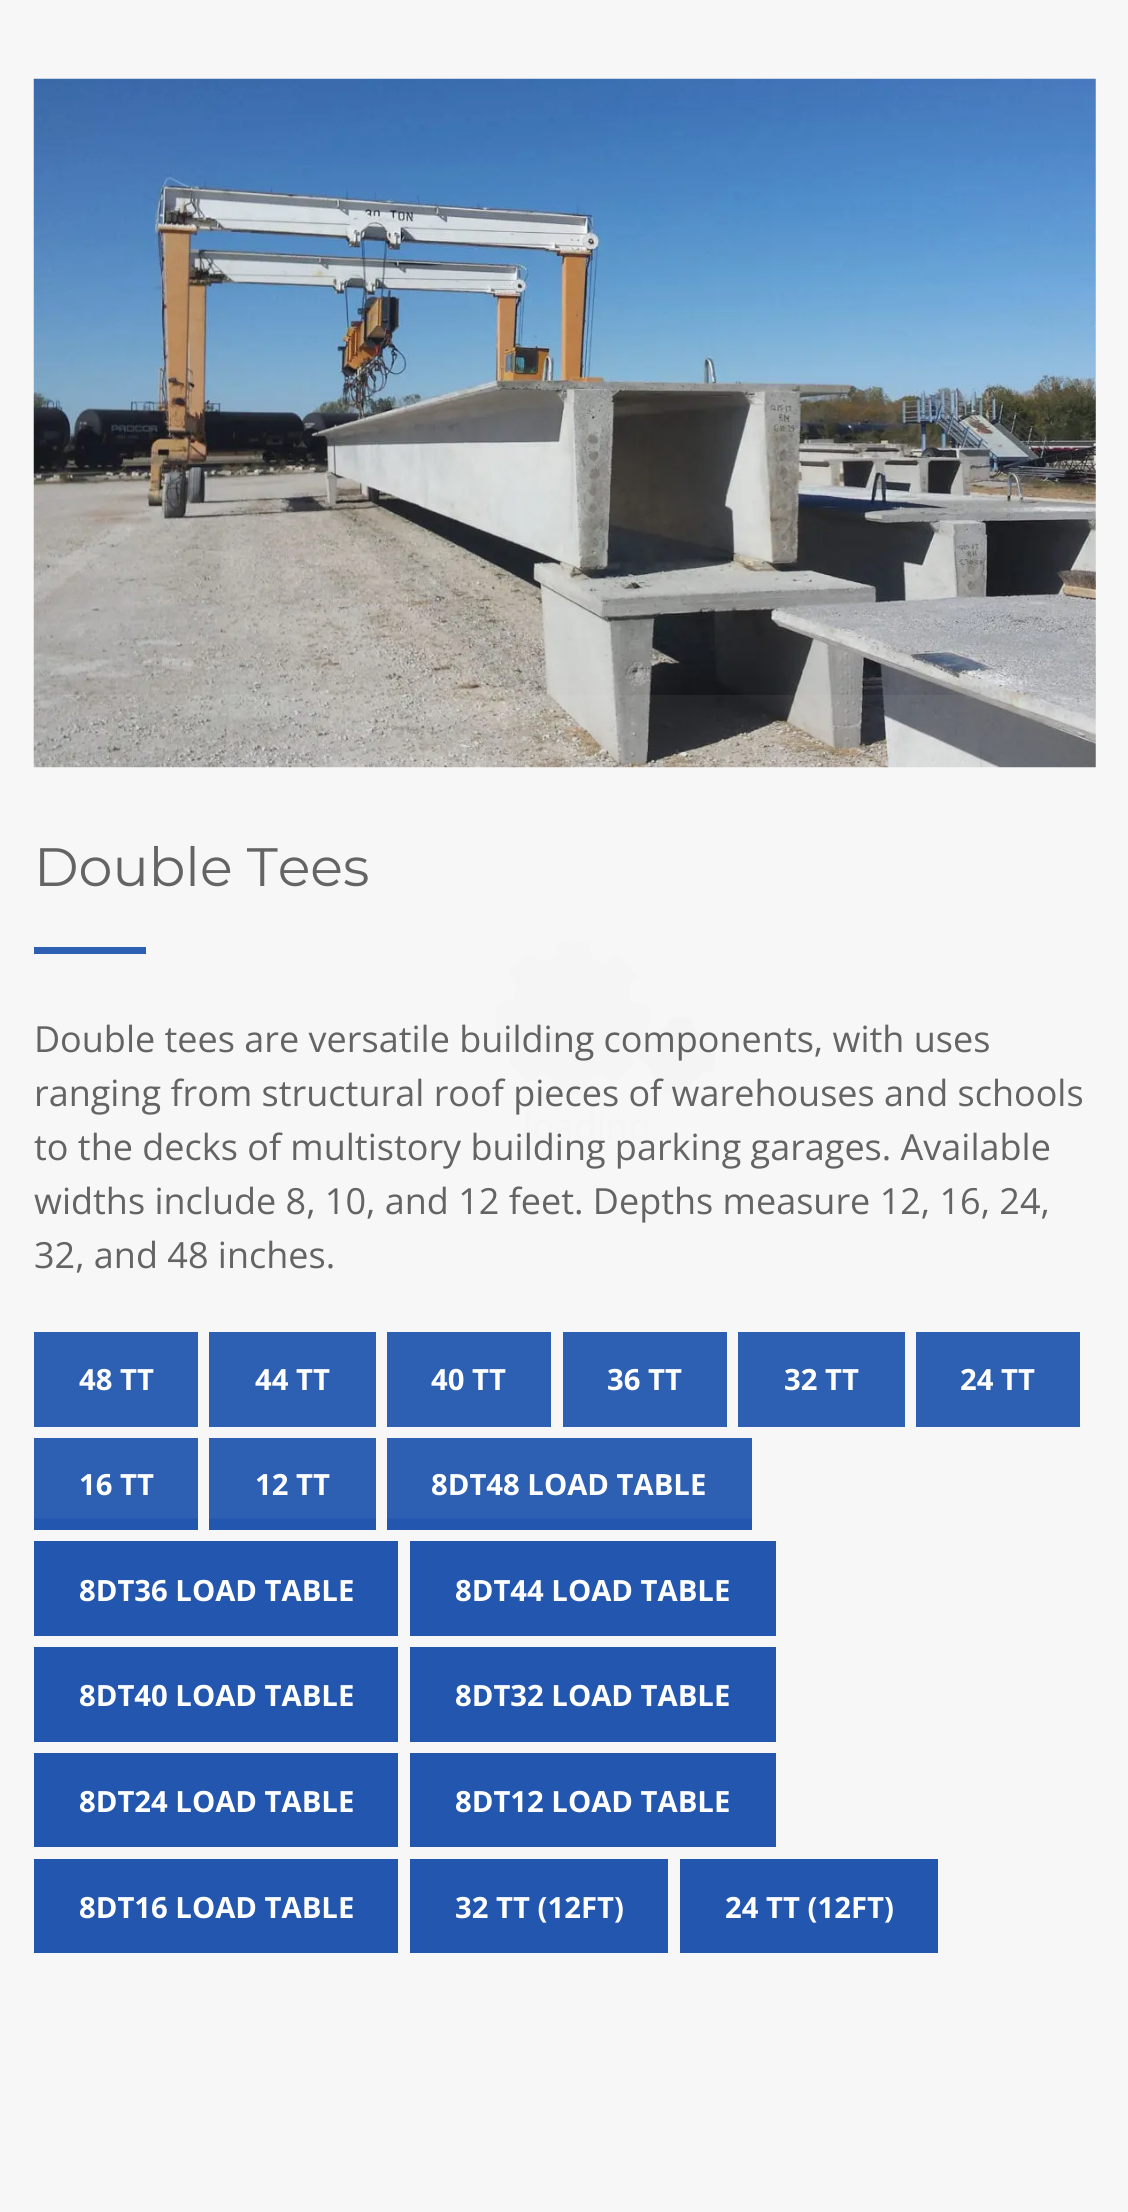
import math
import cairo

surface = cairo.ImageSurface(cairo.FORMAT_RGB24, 1128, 2212)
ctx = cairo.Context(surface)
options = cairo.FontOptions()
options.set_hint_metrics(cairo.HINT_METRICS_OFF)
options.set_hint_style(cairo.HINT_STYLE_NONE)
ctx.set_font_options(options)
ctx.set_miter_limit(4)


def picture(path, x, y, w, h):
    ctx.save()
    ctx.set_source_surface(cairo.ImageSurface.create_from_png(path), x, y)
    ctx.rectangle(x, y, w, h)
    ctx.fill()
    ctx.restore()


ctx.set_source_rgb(0.965, 0.965, 0.965)
ctx.paint()
picture("img2.png", 33, 78, 1063, 690)
ctx.select_font_face("Montserrat")
ctx.set_font_size(54)
ctx.set_source_rgb(0.361, 0.361, 0.361)
ctx.move_to(34, 886)
ctx.show_text("Double Tees")
ctx.set_source_rgb(0.133, 0.337, 0.686)
ctx.rectangle(34, 947, 112, 7)
ctx.fill()
ctx.select_font_face("Open Sans")
ctx.set_font_size(36)
ctx.set_source_rgb(0.361, 0.361, 0.361)
ctx.move_to(34, 1052)
ctx.show_text("Double tees are versatile building components, with uses")
ctx.move_to(34, 1106)
ctx.show_text("ranging from structural roof pieces of warehouses and schools")
ctx.move_to(34, 1160)
ctx.show_text("to the decks of multistory building parking garages. Available")
ctx.move_to(34, 1214)
ctx.show_text("widths include 8, 10, and 12 feet. Depths measure 12, 16, 24,")
ctx.move_to(34, 1268)
ctx.show_text("32, and 48 inches.")
ctx.set_source_rgb(0.133, 0.337, 0.686)
ctx.rectangle(34, 1332, 164, 95)
ctx.fill()
ctx.select_font_face("Open Sans", cairo.FONT_SLANT_NORMAL, cairo.FONT_WEIGHT_BOLD)
ctx.set_font_size(29.25)
ctx.set_source_rgb(1, 1, 1)
ctx.move_to(79, 1390)
ctx.show_text("48 TT")
ctx.set_source_rgb(0.133, 0.337, 0.686)
ctx.rectangle(209, 1332, 167, 95)
ctx.fill()
ctx.set_source_rgb(1, 1, 1)
ctx.move_to(255, 1390)
ctx.show_text("44 TT")
ctx.set_source_rgb(0.133, 0.337, 0.686)
ctx.rectangle(387, 1332, 164, 95)
ctx.fill()
ctx.set_source_rgb(1, 1, 1)
ctx.move_to(431, 1390)
ctx.show_text("40 TT")
ctx.set_source_rgb(0.133, 0.337, 0.686)
ctx.rectangle(563, 1332, 164, 95)
ctx.fill()
ctx.set_source_rgb(1, 1, 1)
ctx.move_to(607, 1390)
ctx.show_text("36 TT")
ctx.set_source_rgb(0.133, 0.337, 0.686)
ctx.rectangle(738, 1332, 167, 95)
ctx.fill()
ctx.set_source_rgb(1, 1, 1)
ctx.move_to(784, 1390)
ctx.show_text("32 TT")
ctx.set_source_rgb(0.133, 0.337, 0.686)
ctx.rectangle(916, 1332, 164, 95)
ctx.fill()
ctx.set_source_rgb(1, 1, 1)
ctx.move_to(960, 1390)
ctx.show_text("24 TT")
ctx.set_source_rgb(0.133, 0.337, 0.686)
ctx.rectangle(34, 1438, 164, 92)
ctx.fill()
ctx.set_source_rgb(1, 1, 1)
ctx.move_to(79, 1495)
ctx.show_text("16 TT")
ctx.set_source_rgb(0.133, 0.337, 0.686)
ctx.rectangle(209, 1438, 167, 92)
ctx.fill()
ctx.set_source_rgb(1, 1, 1)
ctx.move_to(255, 1495)
ctx.show_text("12 TT")
ctx.set_source_rgb(0.133, 0.337, 0.686)
ctx.rectangle(387, 1438, 365, 92)
ctx.fill()
ctx.set_source_rgb(1, 1, 1)
ctx.move_to(431, 1495)
ctx.show_text("8DT48 LOAD TABLE")
picture("img1.png", 34, 695, 1062, 824)
ctx.set_source_rgb(0.133, 0.337, 0.686)
ctx.rectangle(34, 1541, 364, 95)
ctx.fill()
ctx.set_source_rgb(1, 1, 1)
ctx.move_to(79, 1601)
ctx.show_text("8DT36 LOAD TABLE")
ctx.set_source_rgb(0.133, 0.337, 0.686)
ctx.rectangle(410, 1541, 366, 95)
ctx.fill()
ctx.set_source_rgb(1, 1, 1)
ctx.move_to(455, 1601)
ctx.show_text("8DT44 LOAD TABLE")
ctx.set_source_rgb(0.133, 0.337, 0.686)
ctx.rectangle(34, 1647, 364, 95)
ctx.fill()
ctx.set_source_rgb(1, 1, 1)
ctx.move_to(79, 1706)
ctx.show_text("8DT40 LOAD TABLE")
ctx.set_source_rgb(0.133, 0.337, 0.686)
ctx.rectangle(410, 1647, 366, 95)
ctx.fill()
ctx.set_source_rgb(1, 1, 1)
ctx.move_to(455, 1706)
ctx.show_text("8DT32 LOAD TABLE")
ctx.set_source_rgb(0.133, 0.337, 0.686)
ctx.rectangle(34, 1753, 364, 94)
ctx.fill()
ctx.set_source_rgb(1, 1, 1)
ctx.move_to(79, 1812)
ctx.show_text("8DT24 LOAD TABLE")
ctx.set_source_rgb(0.133, 0.337, 0.686)
ctx.rectangle(410, 1753, 366, 94)
ctx.fill()
ctx.set_source_rgb(1, 1, 1)
ctx.move_to(455, 1812)
ctx.show_text("8DT12 LOAD TABLE")
ctx.set_source_rgb(0.133, 0.337, 0.686)
ctx.rectangle(34, 1859, 364, 94)
ctx.fill()
ctx.set_source_rgb(1, 1, 1)
ctx.move_to(79, 1918)
ctx.show_text("8DT16 LOAD TABLE")
ctx.set_source_rgb(0.133, 0.337, 0.686)
ctx.rectangle(410, 1859, 258, 94)
ctx.fill()
ctx.set_source_rgb(1, 1, 1)
ctx.move_to(455, 1918)
ctx.show_text("32 TT (12FT)")
ctx.set_source_rgb(0.133, 0.337, 0.686)
ctx.rectangle(680, 1859, 258, 94)
ctx.fill()
ctx.set_source_rgb(1, 1, 1)
ctx.move_to(725, 1918)
ctx.show_text("24 TT (12FT)")
surface.write_to_png("page.png")
